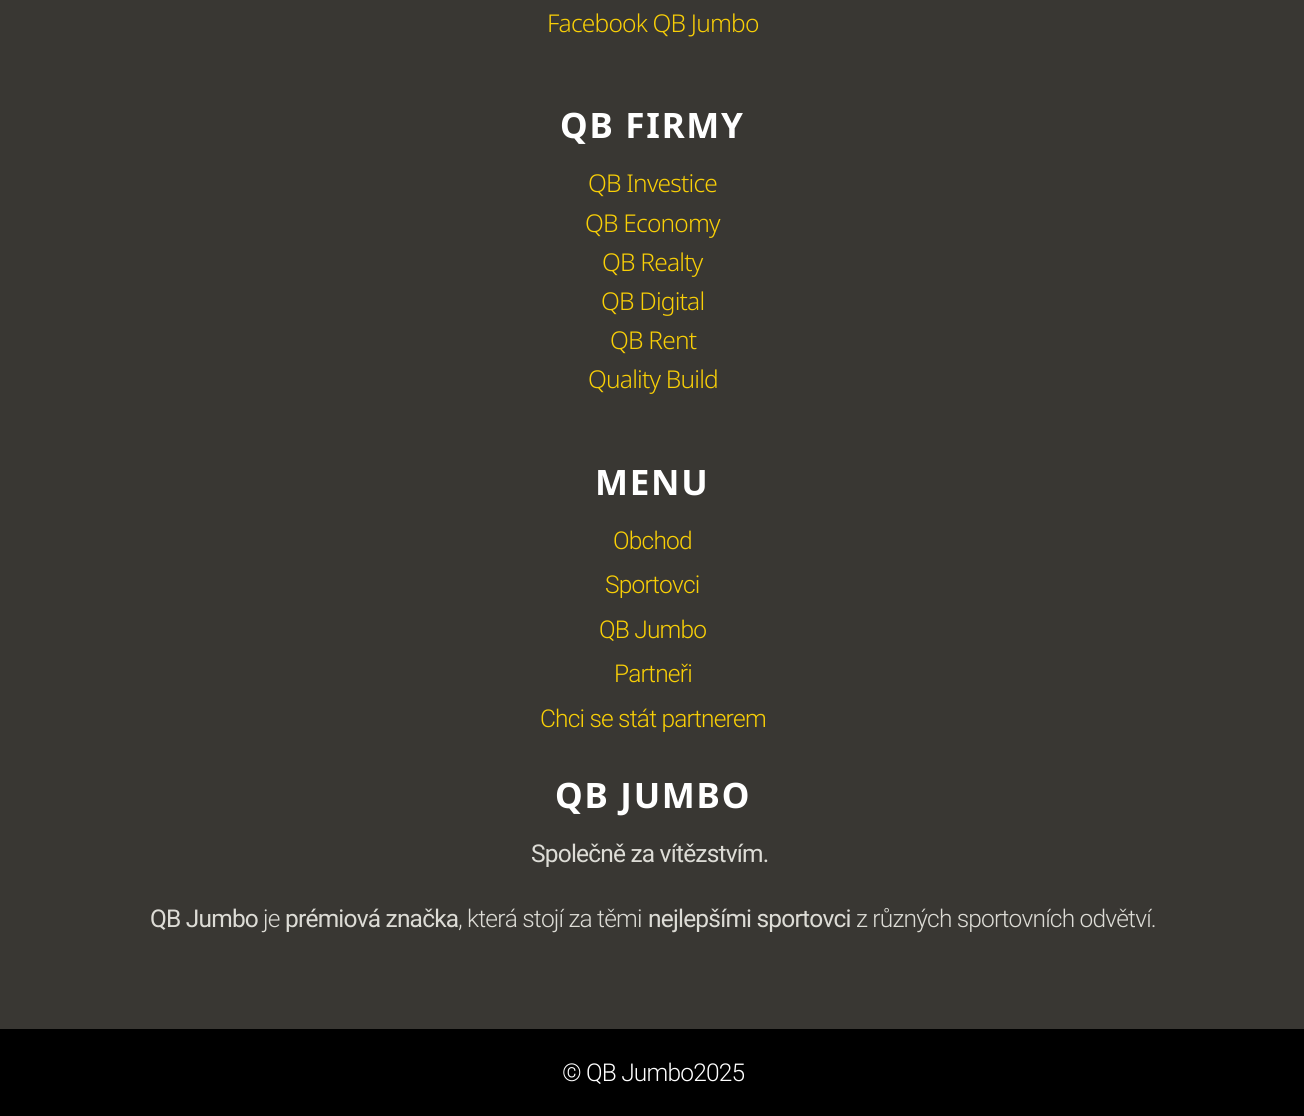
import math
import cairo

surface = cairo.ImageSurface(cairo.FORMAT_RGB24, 1304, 1116)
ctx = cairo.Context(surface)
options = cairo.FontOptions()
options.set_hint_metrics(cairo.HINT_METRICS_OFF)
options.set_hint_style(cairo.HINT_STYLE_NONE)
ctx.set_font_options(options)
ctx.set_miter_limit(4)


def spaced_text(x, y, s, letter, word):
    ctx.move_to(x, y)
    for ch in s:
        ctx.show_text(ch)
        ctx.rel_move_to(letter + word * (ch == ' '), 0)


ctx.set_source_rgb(0.224, 0.216, 0.2)
ctx.paint()
ctx.select_font_face("Noto Sans Light")
ctx.set_font_size(24.5)
ctx.set_source_rgb(0.976, 0.812, 0.024)
spaced_text(547, 32, "Facebook QB Jumbo", -0.8, 0)
ctx.select_font_face("Noto Sans", cairo.FONT_SLANT_NORMAL, cairo.FONT_WEIGHT_BOLD)
ctx.set_font_size(35)
ctx.set_source_rgb(1, 1, 1)
spaced_text(560, 138, "QB FIRMY", 1.75, 0)
ctx.select_font_face("Noto Sans Light")
ctx.set_font_size(24.5)
ctx.set_source_rgb(0.976, 0.812, 0.024)
spaced_text(588, 192, "QB Investice", -0.8, 0)
spaced_text(585, 232, "QB Economy", -0.8, 0)
spaced_text(602, 271, "QB Realty", -0.8, 0)
spaced_text(601, 310, "QB Digital", -0.8, 0)
spaced_text(610, 349, "QB Rent", -0.8, 0)
spaced_text(588, 388, "Quality Build", -0.8, 0)
ctx.select_font_face("Noto Sans", cairo.FONT_SLANT_NORMAL, cairo.FONT_WEIGHT_BOLD)
ctx.set_font_size(35)
ctx.set_source_rgb(1, 1, 1)
spaced_text(595, 495, "MENU", 1.75, 0)
ctx.select_font_face("Roboto Light")
ctx.set_font_size(24.5)
ctx.set_source_rgb(0.976, 0.812, 0.024)
spaced_text(613, 549, "Obchod", -0.8, 0)
spaced_text(605, 593, "Sportovci", -0.8, 0)
spaced_text(599, 638, "QB Jumbo", -0.8, 0)
spaced_text(614, 682, "Partneři", -0.8, 0)
spaced_text(540, 727, "Chci se stát partnerem", -0.8, 0)
ctx.select_font_face("Noto Sans", cairo.FONT_SLANT_NORMAL, cairo.FONT_WEIGHT_BOLD)
ctx.set_font_size(35)
ctx.set_source_rgb(1, 1, 1)
spaced_text(555, 808, "QB JUMBO", 1.75, 0)
ctx.select_font_face("Roboto")
ctx.set_font_size(24.5)
ctx.set_source_rgb(0.867, 0.863, 0.839)
spaced_text(531, 862, "Společně za vítězstvím.", -0.8, 0)
spaced_text(150, 927, "QB Jumbo", -0.8, 0)
ctx.select_font_face("Roboto Light")
spaced_text(263, 927, "je", -0.8, 0)
ctx.select_font_face("Roboto")
spaced_text(285, 927, "prémiová značka", -0.8, 0)
ctx.select_font_face("Roboto Light")
spaced_text(458, 927, ", která stojí za těmi", -0.8, 0)
ctx.select_font_face("Roboto")
spaced_text(648, 927, "nejlepšími sportovci", -0.8, 0)
ctx.select_font_face("Roboto Light")
spaced_text(856, 927, "z různých sportovních odvětví.", -0.8, 0)
ctx.set_source_rgb(0, 0, 0)
ctx.rectangle(0, 1029, 1304, 87)
ctx.fill()
ctx.set_source_rgb(1, 1, 1)
spaced_text(562, 1081, "© QB Jumbo2025", -0.8, 0)
surface.write_to_png("page.png")
